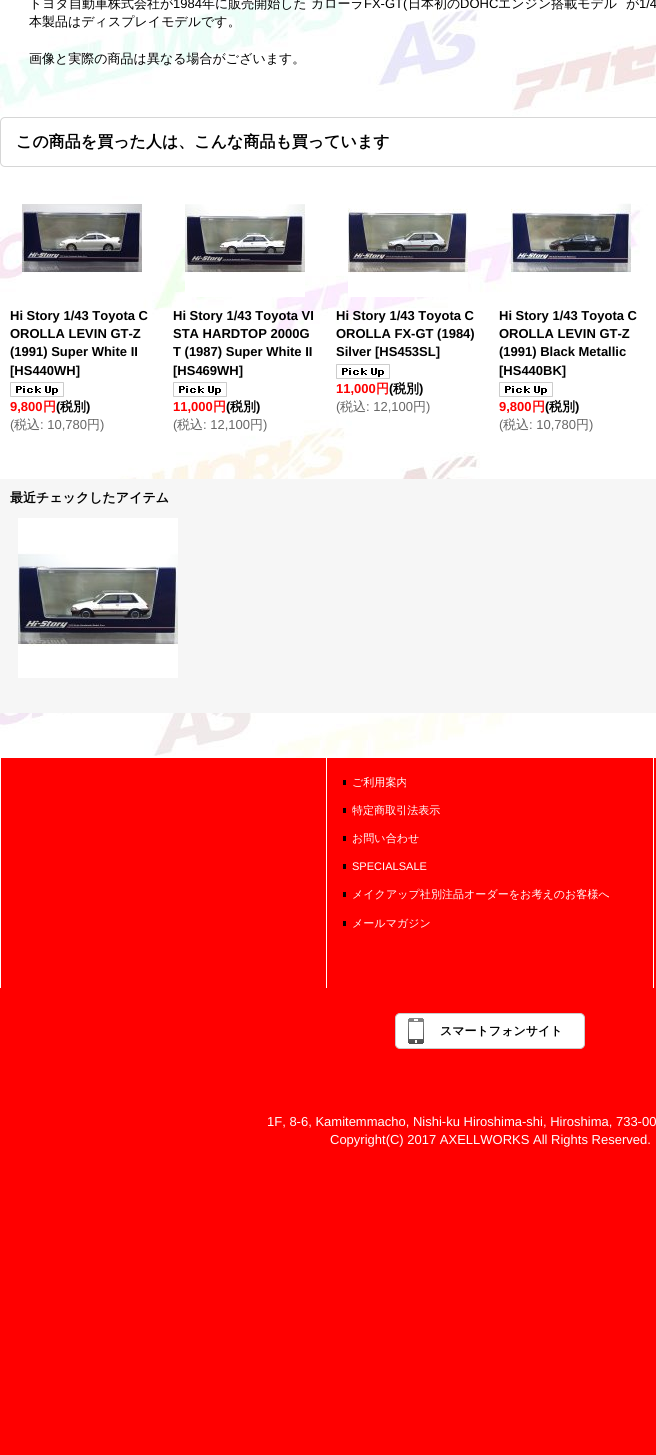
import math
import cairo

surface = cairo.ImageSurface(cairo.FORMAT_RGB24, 656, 1455)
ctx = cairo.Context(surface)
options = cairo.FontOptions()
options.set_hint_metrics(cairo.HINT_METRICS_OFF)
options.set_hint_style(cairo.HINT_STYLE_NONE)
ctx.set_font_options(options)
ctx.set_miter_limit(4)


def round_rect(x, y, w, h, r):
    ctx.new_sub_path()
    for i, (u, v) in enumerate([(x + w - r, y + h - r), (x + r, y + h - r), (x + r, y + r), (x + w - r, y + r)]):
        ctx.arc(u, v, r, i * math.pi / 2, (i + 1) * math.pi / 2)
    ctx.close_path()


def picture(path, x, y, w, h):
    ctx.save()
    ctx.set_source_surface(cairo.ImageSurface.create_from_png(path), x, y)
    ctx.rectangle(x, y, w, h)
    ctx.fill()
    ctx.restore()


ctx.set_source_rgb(1, 1, 1)
ctx.paint()
picture("img1.png", 0, 0, 656, 758)
ctx.select_font_face("WenQuanYi Zen Hei Medium")
ctx.set_font_size(13)
ctx.set_source_rgb(0, 0, 0)
ctx.move_to(29, 8)
ctx.show_text("トヨタ自動車株式会社が")
ctx.select_font_face("Liberation Sans")
ctx.move_to(173, 8)
ctx.show_text("1984")
ctx.select_font_face("WenQuanYi Zen Hei Medium")
ctx.move_to(202, 8)
ctx.show_text("年に販売開始した")
ctx.move_to(311, 8)
ctx.show_text("カローラ")
ctx.select_font_face("Liberation Sans")
ctx.move_to(364, 8)
ctx.show_text("FX-GT(")
ctx.select_font_face("WenQuanYi Zen Hei Medium")
ctx.move_to(408, 8)
ctx.show_text("日本初の")
ctx.select_font_face("Liberation Sans")
ctx.move_to(460, 8)
ctx.show_text("DOHC")
ctx.select_font_face("WenQuanYi Zen Hei Medium")
ctx.move_to(498, 8)
ctx.show_text("エンジン搭載モデル")
ctx.move_to(626, 8)
ctx.show_text("が")
ctx.select_font_face("Liberation Sans")
ctx.move_to(639, 8)
ctx.show_text("1/4")
ctx.select_font_face("WenQuanYi Zen Hei Medium")
ctx.move_to(29, 26)
ctx.show_text("本製品はディスプレイモデルです。")
ctx.move_to(29, 63)
ctx.show_text("画像と実際の商品は異なる場合がございます。")
round_rect(0.5, 117.5, 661, 49, 4.5)
ctx.set_source_rgb(0.839, 0.839, 0.839)
ctx.set_line_width(1)
ctx.stroke()
ctx.select_font_face("WenQuanYi Zen Hei", cairo.FONT_SLANT_NORMAL, cairo.FONT_WEIGHT_BOLD)
ctx.set_font_size(16)
ctx.set_source_rgb(0, 0, 0)
ctx.move_to(16, 147)
ctx.show_text("この商品を買った人は、こんな商品も買っています")
picture("img2.png", 22, 204, 120, 72)
ctx.select_font_face("Liberation Sans", cairo.FONT_SLANT_NORMAL, cairo.FONT_WEIGHT_BOLD)
ctx.set_font_size(13)
ctx.move_to(10, 320)
ctx.show_text("Hi Story 1/43 Toyota C")
ctx.move_to(10, 338)
ctx.show_text("OROLLA LEVIN GT-Z")
ctx.move_to(10, 356)
ctx.show_text("(1991) Super White II")
ctx.move_to(10, 375)
ctx.show_text("[HS440WH]")
picture("img3.png", 10, 382, 54, 15)
ctx.set_source_rgb(1, 0, 0)
ctx.move_to(10, 411)
ctx.show_text("9,800")
ctx.select_font_face("WenQuanYi Zen Hei", cairo.FONT_SLANT_NORMAL, cairo.FONT_WEIGHT_BOLD)
ctx.move_to(43, 411)
ctx.show_text("円")
ctx.select_font_face("Liberation Sans", cairo.FONT_SLANT_NORMAL, cairo.FONT_WEIGHT_BOLD)
ctx.set_source_rgb(0, 0, 0)
ctx.move_to(56, 411)
ctx.show_text("(")
ctx.select_font_face("WenQuanYi Zen Hei", cairo.FONT_SLANT_NORMAL, cairo.FONT_WEIGHT_BOLD)
ctx.move_to(60, 411)
ctx.show_text("税別")
ctx.select_font_face("Liberation Sans", cairo.FONT_SLANT_NORMAL, cairo.FONT_WEIGHT_BOLD)
ctx.move_to(86, 411)
ctx.show_text(")")
ctx.select_font_face("Liberation Sans")
ctx.set_source_rgb(0.4, 0.4, 0.4)
ctx.move_to(10, 429)
ctx.show_text("(")
ctx.select_font_face("WenQuanYi Zen Hei Medium")
ctx.move_to(14, 429)
ctx.show_text("税込")
ctx.select_font_face("Liberation Sans")
ctx.move_to(40, 429)
ctx.show_text(": 10,780")
ctx.select_font_face("WenQuanYi Zen Hei Medium")
ctx.move_to(87, 429)
ctx.show_text("円")
ctx.select_font_face("Liberation Sans")
ctx.move_to(100, 429)
ctx.show_text(")")
picture("img4.png", 185, 204, 120, 93)
ctx.select_font_face("Liberation Sans", cairo.FONT_SLANT_NORMAL, cairo.FONT_WEIGHT_BOLD)
ctx.set_source_rgb(0, 0, 0)
ctx.move_to(173, 320)
ctx.show_text("Hi Story 1/43 Toyota VI")
ctx.move_to(173, 338)
ctx.show_text("STA HARDTOP 2000G")
ctx.move_to(173, 356)
ctx.show_text("T (1987) Super White II")
ctx.move_to(173, 375)
ctx.show_text("[HS469WH]")
picture("img3.png", 173, 382, 54, 15)
ctx.set_source_rgb(1, 0, 0)
ctx.move_to(173, 411)
ctx.show_text("11,000")
ctx.select_font_face("WenQuanYi Zen Hei", cairo.FONT_SLANT_NORMAL, cairo.FONT_WEIGHT_BOLD)
ctx.move_to(213, 411)
ctx.show_text("円")
ctx.select_font_face("Liberation Sans", cairo.FONT_SLANT_NORMAL, cairo.FONT_WEIGHT_BOLD)
ctx.set_source_rgb(0, 0, 0)
ctx.move_to(226, 411)
ctx.show_text("(")
ctx.select_font_face("WenQuanYi Zen Hei", cairo.FONT_SLANT_NORMAL, cairo.FONT_WEIGHT_BOLD)
ctx.move_to(230, 411)
ctx.show_text("税別")
ctx.select_font_face("Liberation Sans", cairo.FONT_SLANT_NORMAL, cairo.FONT_WEIGHT_BOLD)
ctx.move_to(256, 411)
ctx.show_text(")")
ctx.select_font_face("Liberation Sans")
ctx.set_source_rgb(0.4, 0.4, 0.4)
ctx.move_to(173, 429)
ctx.show_text("(")
ctx.select_font_face("WenQuanYi Zen Hei Medium")
ctx.move_to(177, 429)
ctx.show_text("税込")
ctx.select_font_face("Liberation Sans")
ctx.move_to(203, 429)
ctx.show_text(": 12,100")
ctx.select_font_face("WenQuanYi Zen Hei Medium")
ctx.move_to(250, 429)
ctx.show_text("円")
ctx.select_font_face("Liberation Sans")
ctx.move_to(263, 429)
ctx.show_text(")")
picture("img5.png", 348, 208, 120, 89)
ctx.select_font_face("Liberation Sans", cairo.FONT_SLANT_NORMAL, cairo.FONT_WEIGHT_BOLD)
ctx.set_source_rgb(0, 0, 0)
ctx.move_to(336, 320)
ctx.show_text("Hi Story 1/43 Toyota C")
ctx.move_to(336, 338)
ctx.show_text("OROLLA FX-GT (1984)")
ctx.move_to(336, 356)
ctx.show_text("Silver [HS453SL]")
picture("img3.png", 336, 364, 54, 15)
ctx.set_source_rgb(1, 0, 0)
ctx.move_to(336, 393)
ctx.show_text("11,000")
ctx.select_font_face("WenQuanYi Zen Hei", cairo.FONT_SLANT_NORMAL, cairo.FONT_WEIGHT_BOLD)
ctx.move_to(376, 393)
ctx.show_text("円")
ctx.select_font_face("Liberation Sans", cairo.FONT_SLANT_NORMAL, cairo.FONT_WEIGHT_BOLD)
ctx.set_source_rgb(0, 0, 0)
ctx.move_to(389, 393)
ctx.show_text("(")
ctx.select_font_face("WenQuanYi Zen Hei", cairo.FONT_SLANT_NORMAL, cairo.FONT_WEIGHT_BOLD)
ctx.move_to(393, 393)
ctx.show_text("税別")
ctx.select_font_face("Liberation Sans", cairo.FONT_SLANT_NORMAL, cairo.FONT_WEIGHT_BOLD)
ctx.move_to(419, 393)
ctx.show_text(")")
ctx.select_font_face("Liberation Sans")
ctx.set_source_rgb(0.4, 0.4, 0.4)
ctx.move_to(336, 411)
ctx.show_text("(")
ctx.select_font_face("WenQuanYi Zen Hei Medium")
ctx.move_to(340, 411)
ctx.show_text("税込")
ctx.select_font_face("Liberation Sans")
ctx.move_to(366, 411)
ctx.show_text(": 12,100")
ctx.select_font_face("WenQuanYi Zen Hei Medium")
ctx.move_to(413, 411)
ctx.show_text("円")
ctx.select_font_face("Liberation Sans")
ctx.move_to(426, 411)
ctx.show_text(")")
picture("img6.png", 511, 203, 120, 78)
ctx.select_font_face("Liberation Sans", cairo.FONT_SLANT_NORMAL, cairo.FONT_WEIGHT_BOLD)
ctx.set_source_rgb(0, 0, 0)
ctx.move_to(499, 320)
ctx.show_text("Hi Story 1/43 Toyota C")
ctx.move_to(499, 338)
ctx.show_text("OROLLA LEVIN GT-Z")
ctx.move_to(499, 356)
ctx.show_text("(1991) Black Metallic")
ctx.move_to(499, 375)
ctx.show_text("[HS440BK]")
picture("img3.png", 499, 382, 54, 15)
ctx.set_source_rgb(1, 0, 0)
ctx.move_to(499, 411)
ctx.show_text("9,800")
ctx.select_font_face("WenQuanYi Zen Hei", cairo.FONT_SLANT_NORMAL, cairo.FONT_WEIGHT_BOLD)
ctx.move_to(532, 411)
ctx.show_text("円")
ctx.select_font_face("Liberation Sans", cairo.FONT_SLANT_NORMAL, cairo.FONT_WEIGHT_BOLD)
ctx.set_source_rgb(0, 0, 0)
ctx.move_to(545, 411)
ctx.show_text("(")
ctx.select_font_face("WenQuanYi Zen Hei", cairo.FONT_SLANT_NORMAL, cairo.FONT_WEIGHT_BOLD)
ctx.move_to(549, 411)
ctx.show_text("税別")
ctx.select_font_face("Liberation Sans", cairo.FONT_SLANT_NORMAL, cairo.FONT_WEIGHT_BOLD)
ctx.move_to(575, 411)
ctx.show_text(")")
ctx.select_font_face("Liberation Sans")
ctx.set_source_rgb(0.4, 0.4, 0.4)
ctx.move_to(499, 429)
ctx.show_text("(")
ctx.select_font_face("WenQuanYi Zen Hei Medium")
ctx.move_to(503, 429)
ctx.show_text("税込")
ctx.select_font_face("Liberation Sans")
ctx.move_to(529, 429)
ctx.show_text(": 10,780")
ctx.select_font_face("WenQuanYi Zen Hei Medium")
ctx.move_to(576, 429)
ctx.show_text("円")
ctx.select_font_face("Liberation Sans")
ctx.move_to(589, 429)
ctx.show_text(")")
ctx.set_source_rgb(0.961, 0.961, 0.961)
ctx.rectangle(0, 479, 656, 234)
ctx.fill()
ctx.select_font_face("WenQuanYi Zen Hei", cairo.FONT_SLANT_NORMAL, cairo.FONT_WEIGHT_BOLD)
ctx.set_source_rgb(0, 0, 0)
ctx.move_to(10, 502)
ctx.show_text("最近チェックしたアイテム")
picture("img7.png", 18, 518, 160, 160)
ctx.set_source_rgb(1, 0, 0)
ctx.rectangle(0, 758, 656, 697)
ctx.fill()
ctx.set_source_rgb(1, 1, 1)
ctx.rectangle(0, 758, 1, 230)
ctx.fill()
ctx.rectangle(326, 758, 1, 230)
ctx.fill()
ctx.set_source_rgb(0, 0, 0)
ctx.rectangle(343, 780, 3, 5)
ctx.fill()
ctx.select_font_face("WenQuanYi Zen Hei Medium")
ctx.set_font_size(11.05)
ctx.set_source_rgb(1, 1, 1)
ctx.move_to(352, 786)
ctx.show_text("ご利用案内")
ctx.set_source_rgb(0, 0, 0)
ctx.rectangle(343, 808, 3, 5)
ctx.fill()
ctx.set_source_rgb(1, 1, 1)
ctx.move_to(352, 814)
ctx.show_text("特定商取引法表示")
ctx.set_source_rgb(0, 0, 0)
ctx.rectangle(343, 836, 3, 5)
ctx.fill()
ctx.set_source_rgb(1, 1, 1)
ctx.move_to(352, 842)
ctx.show_text("お問い合わせ")
ctx.set_source_rgb(0, 0, 0)
ctx.rectangle(343, 864, 3, 5)
ctx.fill()
ctx.select_font_face("Liberation Sans")
ctx.set_source_rgb(1, 1, 1)
ctx.move_to(352, 870)
ctx.show_text("SPECIALSALE")
ctx.set_source_rgb(0, 0, 0)
ctx.rectangle(343, 892, 3, 5)
ctx.fill()
ctx.select_font_face("WenQuanYi Zen Hei Medium")
ctx.set_source_rgb(1, 1, 1)
ctx.move_to(352, 898)
ctx.show_text("メイクアップ社別注品オーダーをお考えのお客様へ")
ctx.set_source_rgb(0, 0, 0)
ctx.rectangle(343, 921, 3, 5)
ctx.fill()
ctx.set_source_rgb(1, 1, 1)
ctx.move_to(352, 927)
ctx.show_text("メールマガジン")
ctx.rectangle(653, 758, 1, 230)
ctx.fill()
round_rect(395.5, 1013.5, 189, 35, 4.5)
ctx.fill_preserve()
ctx.set_source_rgb(0.8, 0.8, 0.8)
ctx.stroke()
picture("img8.png", 408, 1018, 16, 26)
ctx.select_font_face("WenQuanYi Zen Hei", cairo.FONT_SLANT_NORMAL, cairo.FONT_WEIGHT_BOLD)
ctx.set_font_size(12)
ctx.set_source_rgb(0, 0, 0)
ctx.move_to(440, 1035)
ctx.show_text("スマートフォンサイト")
ctx.select_font_face("Liberation Sans")
ctx.set_font_size(13)
ctx.set_source_rgb(1, 1, 1)
ctx.move_to(267, 1126)
ctx.show_text("1F, 8-6, Kamitemmacho, Nishi-ku Hiroshima-shi, Hiroshima, 733-00")
ctx.move_to(330, 1144)
ctx.show_text("Copyright(C) 2017 AXELLWORKS All Rights Reserved.")
surface.write_to_png("page.png")
